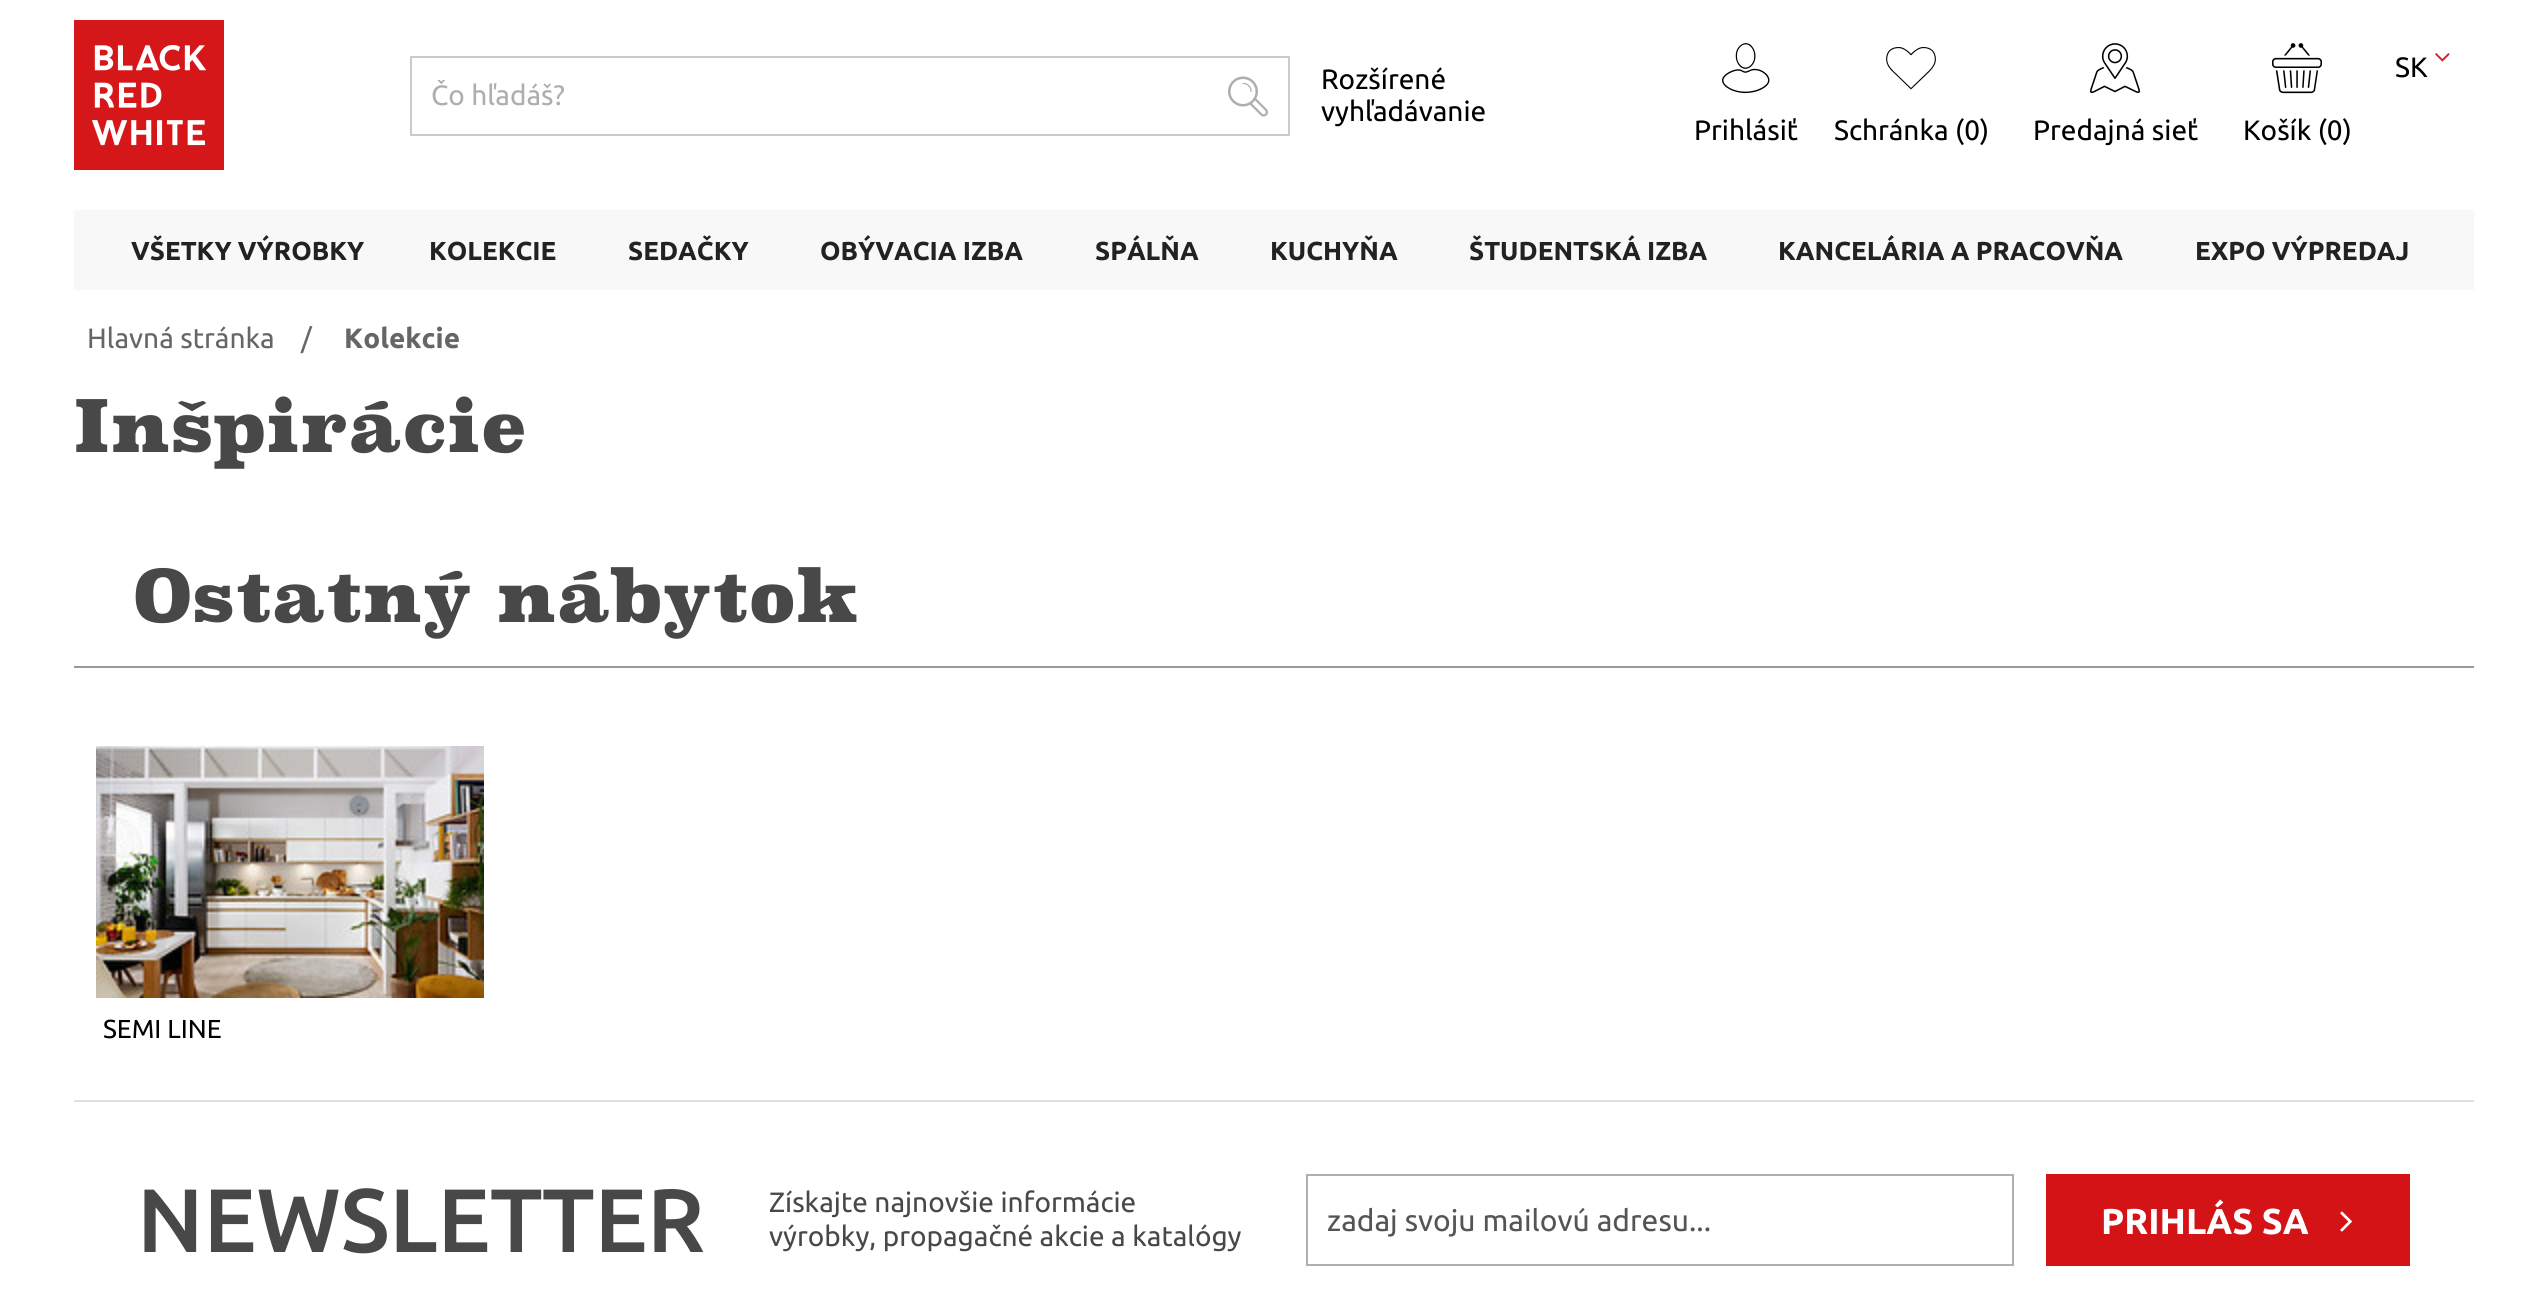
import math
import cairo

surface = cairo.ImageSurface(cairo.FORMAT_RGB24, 2546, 1298)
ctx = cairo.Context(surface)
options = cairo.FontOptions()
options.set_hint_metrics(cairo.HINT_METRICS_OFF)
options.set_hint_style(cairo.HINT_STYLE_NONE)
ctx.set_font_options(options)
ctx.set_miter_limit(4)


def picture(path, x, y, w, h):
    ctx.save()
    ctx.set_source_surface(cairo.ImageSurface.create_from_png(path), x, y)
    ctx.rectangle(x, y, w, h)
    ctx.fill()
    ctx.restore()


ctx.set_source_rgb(1, 1, 1)
ctx.paint()
picture("img1.png", 74, 20, 150, 150)
ctx.rectangle(411, 57, 878, 78)
ctx.set_source_rgb(0.796, 0.796, 0.796)
ctx.stroke()
ctx.save()
ctx.rectangle(432, 80, 776, 32)
ctx.clip()
ctx.select_font_face("Ubuntu")
ctx.set_font_size(28)
ctx.set_source_rgb(0.682, 0.682, 0.682)
ctx.move_to(431, 105)
ctx.show_text("Čo hľadáš?")
ctx.restore()
picture("img2.png", 1228, 76, 40, 41)
ctx.select_font_face("Ubuntu")
ctx.set_font_size(28)
ctx.set_source_rgb(0, 0, 0)
ctx.move_to(1321, 89)
ctx.show_text("Rozšírené")
ctx.move_to(1321, 121)
ctx.show_text("vyhľadávanie")
picture("img3.png", 1722, 43, 48, 51)
ctx.move_to(1694, 140)
ctx.show_text("Prihlásiť")
ctx.move_to(2395, 77)
ctx.show_text("SK")
picture("img4.png", 2435, 53, 15, 9)
picture("img5.png", 1886, 47, 50, 43)
ctx.move_to(1834, 140)
ctx.show_text("Schránka (0)")
picture("img6.png", 2090, 43, 50, 51)
ctx.move_to(2033, 140)
ctx.show_text("Predajná sieť")
picture("img7.png", 2272, 43, 50, 51)
ctx.move_to(2243, 140)
ctx.show_text("Košík (0)")
ctx.set_source_rgb(0.969, 0.969, 0.969)
ctx.rectangle(74, 210, 2400, 80)
ctx.fill()
ctx.select_font_face("Ubuntu", cairo.FONT_SLANT_NORMAL, cairo.FONT_WEIGHT_BOLD)
ctx.set_font_size(26)
ctx.set_source_rgb(0.133, 0.133, 0.133)
ctx.move_to(131, 260)
ctx.show_text("VŠETKY VÝROBKY")
ctx.move_to(429, 260)
ctx.show_text("KOLEKCIE")
ctx.move_to(628, 260)
ctx.show_text("SEDAČKY")
ctx.move_to(820, 260)
ctx.show_text("OBÝVACIA IZBA")
ctx.move_to(1095, 260)
ctx.show_text("SPÁLŇA")
ctx.move_to(1270, 260)
ctx.show_text("KUCHYŇA")
ctx.move_to(1469, 260)
ctx.show_text("ŠTUDENTSKÁ IZBA")
ctx.move_to(1778, 260)
ctx.show_text("KANCELÁRIA A PRACOVŇA")
ctx.select_font_face("Ubuntu ExtraBold")
ctx.move_to(2195, 260)
ctx.show_text("EXPO VÝPREDAJ")
ctx.select_font_face("Ubuntu")
ctx.set_font_size(28)
ctx.set_source_rgb(0.4, 0.4, 0.4)
ctx.move_to(87, 348)
ctx.show_text("Hlavná stránka")
ctx.move_to(301, 348)
ctx.show_text("/")
ctx.select_font_face("Ubuntu", cairo.FONT_SLANT_NORMAL, cairo.FONT_WEIGHT_BOLD)
ctx.move_to(344, 348)
ctx.show_text("Kolekcie")
ctx.select_font_face("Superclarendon")
ctx.set_font_size(72)
ctx.set_source_rgb(0.282, 0.282, 0.282)
ctx.move_to(73, 452)
ctx.show_text("Inšpirácie")
ctx.set_source_rgb(0.6, 0.6, 0.6)
ctx.rectangle(74, 666, 2400, 2)
ctx.fill()
ctx.set_source_rgb(0.282, 0.282, 0.282)
ctx.move_to(133, 622)
ctx.show_text("Ostatný nábytok")
picture("img8.png", 96, 746, 388, 252)
ctx.select_font_face("Ubuntu")
ctx.set_font_size(26)
ctx.set_source_rgb(0, 0, 0)
ctx.move_to(103, 1038)
ctx.show_text("SEMI LINE")
ctx.set_source_rgb(0.882, 0.882, 0.882)
ctx.rectangle(74, 1100, 2400, 2)
ctx.fill()
ctx.select_font_face("Ubuntu Medium")
ctx.set_font_size(90)
ctx.set_source_rgb(0.282, 0.282, 0.282)
ctx.move_to(137, 1252)
ctx.show_text("NEWSLETTER")
ctx.select_font_face("Ubuntu")
ctx.set_font_size(28)
ctx.move_to(769, 1212)
ctx.show_text("Získajte najnovšie informácie")
ctx.move_to(769, 1246)
ctx.show_text("výrobky, propagačné akcie a katalógy")
ctx.rectangle(1307, 1175, 706, 90)
ctx.set_source_rgb(0.682, 0.682, 0.682)
ctx.stroke()
ctx.set_font_size(30)
ctx.set_source_rgb(0.333, 0.333, 0.333)
ctx.move_to(1327, 1231)
ctx.show_text("zadaj svoju mailovú adresu...")
ctx.set_source_rgb(0.831, 0.075, 0.09)
ctx.rectangle(2046, 1174, 364, 92)
ctx.fill()
ctx.select_font_face("Ubuntu", cairo.FONT_SLANT_NORMAL, cairo.FONT_WEIGHT_BOLD)
ctx.set_font_size(36)
ctx.set_source_rgb(1, 1, 1)
ctx.move_to(2101, 1234)
ctx.show_text("PRIHLÁS SA")
picture("img9.png", 2340, 1211, 12, 21)
surface.write_to_png("page.png")
